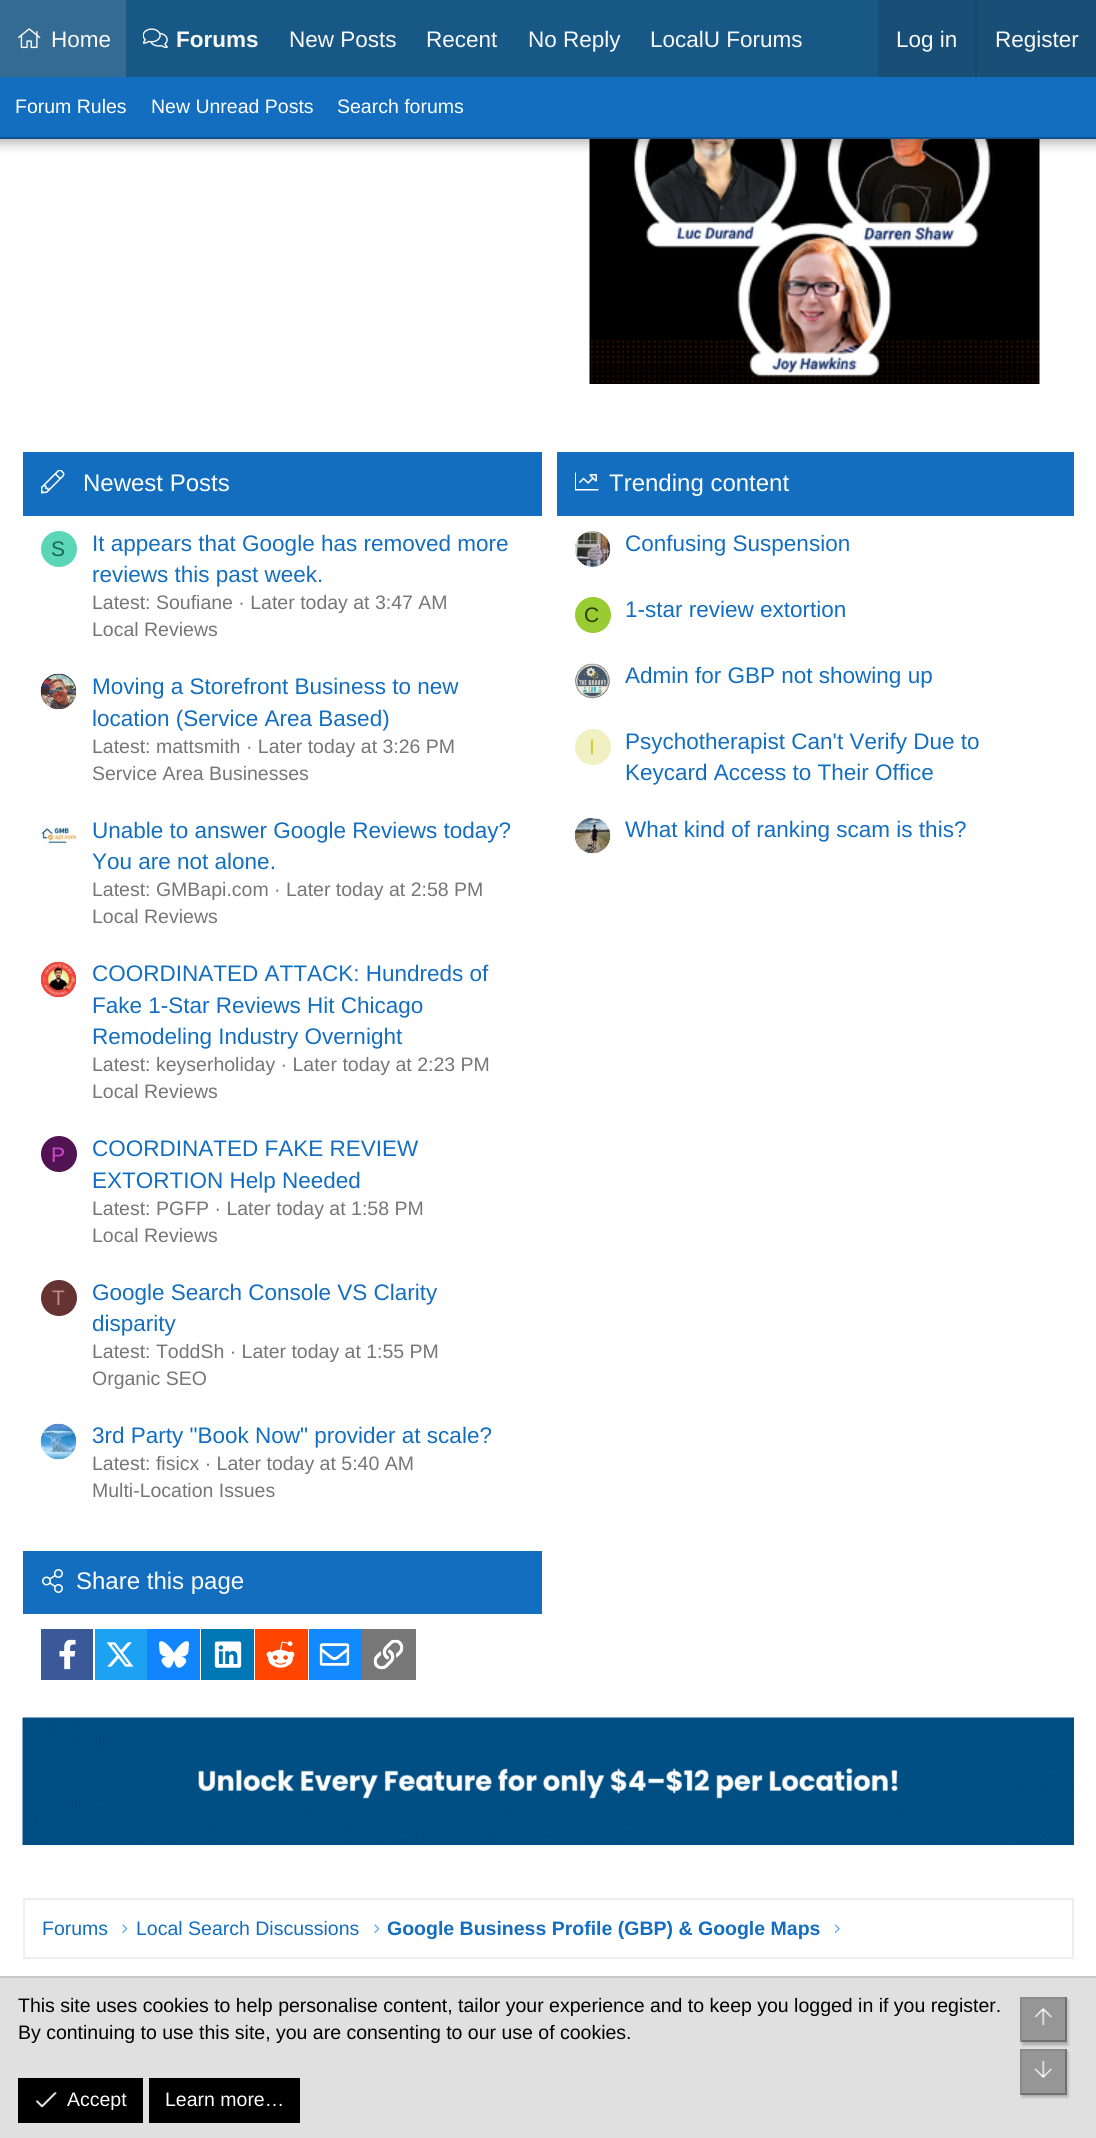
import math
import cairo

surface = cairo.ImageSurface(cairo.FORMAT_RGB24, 1096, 2138)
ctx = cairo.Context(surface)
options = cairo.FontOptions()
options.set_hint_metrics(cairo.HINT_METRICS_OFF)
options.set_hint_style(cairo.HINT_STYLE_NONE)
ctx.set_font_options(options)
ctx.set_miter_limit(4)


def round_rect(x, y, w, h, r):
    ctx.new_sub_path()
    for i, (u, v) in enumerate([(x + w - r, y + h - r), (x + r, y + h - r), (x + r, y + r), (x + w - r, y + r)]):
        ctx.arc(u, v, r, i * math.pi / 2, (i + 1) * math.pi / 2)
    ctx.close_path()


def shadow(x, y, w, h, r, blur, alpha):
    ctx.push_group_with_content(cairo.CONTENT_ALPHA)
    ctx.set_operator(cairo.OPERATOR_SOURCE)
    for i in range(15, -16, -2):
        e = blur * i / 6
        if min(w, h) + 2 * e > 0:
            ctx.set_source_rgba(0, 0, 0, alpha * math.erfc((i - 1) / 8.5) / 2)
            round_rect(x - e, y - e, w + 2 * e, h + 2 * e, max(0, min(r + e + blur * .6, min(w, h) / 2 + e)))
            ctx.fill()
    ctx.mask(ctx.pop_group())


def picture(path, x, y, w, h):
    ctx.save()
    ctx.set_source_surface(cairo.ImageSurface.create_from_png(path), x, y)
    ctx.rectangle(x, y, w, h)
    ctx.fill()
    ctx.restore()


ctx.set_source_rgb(1, 1, 1)
ctx.paint()
picture("img3.png", 589, 139, 451, 245)
ctx.set_source_rgb(0, 0, 0)
shadow(-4, -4, 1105, 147, 0, 6, 0.3)
ctx.set_source_rgb(0.094, 0.345, 0.525)
ctx.rectangle(126, 0, 752, 77)
ctx.fill()
ctx.set_source_rgb(0.2, 0.42, 0.576)
ctx.rectangle(0, 0, 126, 77)
ctx.fill()
picture("img1.png", 18, 28, 23, 21)
ctx.select_font_face("Liberation Sans")
ctx.set_font_size(22.5)
ctx.set_source_rgb(0.976, 0.976, 0.976)
ctx.move_to(51, 47)
ctx.show_text("Home")
picture("img2.png", 143, 28, 25, 21)
ctx.select_font_face("Liberation Sans", cairo.FONT_SLANT_NORMAL, cairo.FONT_WEIGHT_BOLD)
ctx.move_to(176, 47)
ctx.show_text("Forums")
ctx.select_font_face("Liberation Sans")
ctx.move_to(289, 47)
ctx.show_text("New Posts")
ctx.move_to(426, 47)
ctx.show_text("Recent")
ctx.move_to(528, 47)
ctx.show_text("No Reply")
ctx.move_to(650, 47)
ctx.show_text("LocalU Forums")
ctx.set_source_rgb(0.098, 0.31, 0.463)
ctx.rectangle(878, 0, 218, 77)
ctx.fill()
ctx.set_source_rgb(0.976, 0.976, 0.976)
ctx.move_to(896, 47)
ctx.show_text("Log in")
ctx.set_source_rgb(0.102, 0.282, 0.412)
ctx.rectangle(975, 0, 2, 77)
ctx.fill()
ctx.set_source_rgb(0.976, 0.976, 0.976)
ctx.move_to(995, 47)
ctx.show_text("Register")
ctx.set_source_rgb(0.075, 0.431, 0.749)
ctx.rectangle(0, 77, 1096, 60)
ctx.fill()
ctx.set_source_rgb(0.055, 0.325, 0.569)
ctx.rectangle(0, 137, 1096, 2)
ctx.fill()
ctx.set_font_size(19.5)
ctx.set_source_rgb(1, 1, 1)
ctx.move_to(15, 113)
ctx.show_text("Forum Rules")
ctx.move_to(151, 113)
ctx.show_text("New Unread Posts")
ctx.move_to(337, 113)
ctx.show_text("Search forums")
ctx.set_source_rgb(0.075, 0.431, 0.749)
ctx.rectangle(23, 452, 519, 64)
ctx.fill()
picture("img4.png", 41, 470, 24, 24)
ctx.set_font_size(24)
ctx.set_source_rgb(1, 1, 1)
ctx.move_to(83, 491)
ctx.show_text("Newest Posts")
ctx.set_source_rgb(0.361, 0.839, 0.722)
ctx.new_path()
ctx.arc(59, 549, 18, 0, 2 * math.pi)
ctx.fill()
ctx.set_font_size(21)
ctx.set_source_rgb(0.102, 0.4, 0.325)
ctx.move_to(51, 556)
ctx.show_text("S")
ctx.set_font_size(22.5)
ctx.set_source_rgb(0.075, 0.431, 0.749)
ctx.move_to(92, 551)
ctx.show_text("It appears that Google has removed more")
ctx.move_to(92, 582)
ctx.show_text("reviews this past week.")
ctx.set_font_size(19.5)
ctx.set_source_rgb(0.463, 0.463, 0.463)
ctx.move_to(92, 609)
ctx.show_text("Latest: Soufiane · Later today at 3:47 AM")
ctx.move_to(92, 636)
ctx.show_text("Local Reviews")
picture("img5.png", 40, 673, 37, 37)
ctx.set_font_size(22.5)
ctx.set_source_rgb(0.075, 0.431, 0.749)
ctx.move_to(92, 694)
ctx.show_text("Moving a Storefront Business to new")
ctx.move_to(92, 726)
ctx.show_text("location (Service Area Based)")
ctx.set_font_size(19.5)
ctx.set_source_rgb(0.463, 0.463, 0.463)
ctx.move_to(92, 753)
ctx.show_text("Latest: mattsmith · Later today at 3:26 PM")
ctx.move_to(92, 780)
ctx.show_text("Service Area Businesses")
picture("img6.png", 41, 823, 36, 28)
ctx.set_font_size(22.5)
ctx.set_source_rgb(0.075, 0.431, 0.749)
ctx.move_to(92, 838)
ctx.show_text("Unable to answer Google Reviews today?")
ctx.move_to(92, 869)
ctx.show_text("You are not alone.")
ctx.set_font_size(19.5)
ctx.set_source_rgb(0.463, 0.463, 0.463)
ctx.move_to(92, 896)
ctx.show_text("Latest: GMBapi.com · Later today at 2:58 PM")
ctx.move_to(92, 923)
ctx.show_text("Local Reviews")
picture("img7.png", 40, 961, 37, 37)
ctx.set_font_size(22.5)
ctx.set_source_rgb(0.075, 0.431, 0.749)
ctx.move_to(92, 981)
ctx.show_text("COORDINATED ATTACK: Hundreds of")
ctx.move_to(92, 1013)
ctx.show_text("Fake 1-Star Reviews Hit Chicago")
ctx.move_to(92, 1044)
ctx.show_text("Remodeling Industry Overnight")
ctx.set_font_size(19.5)
ctx.set_source_rgb(0.463, 0.463, 0.463)
ctx.move_to(92, 1071)
ctx.show_text("Latest: keyserholiday · Later today at 2:23 PM")
ctx.move_to(92, 1098)
ctx.show_text("Local Reviews")
ctx.set_source_rgb(0.322, 0.078, 0.322)
ctx.new_path()
ctx.arc(59, 1154, 18, 0, 2 * math.pi)
ctx.fill()
ctx.set_font_size(21)
ctx.set_source_rgb(0.82, 0.278, 0.82)
ctx.move_to(51, 1162)
ctx.show_text("P")
ctx.set_font_size(22.5)
ctx.set_source_rgb(0.075, 0.431, 0.749)
ctx.move_to(92, 1156)
ctx.show_text("COORDINATED FAKE REVIEW")
ctx.move_to(92, 1188)
ctx.show_text("EXTORTION Help Needed")
ctx.set_font_size(19.5)
ctx.set_source_rgb(0.463, 0.463, 0.463)
ctx.move_to(92, 1215)
ctx.show_text("Latest: PGFP · Later today at 1:58 PM")
ctx.move_to(92, 1242)
ctx.show_text("Local Reviews")
ctx.set_source_rgb(0.4, 0.2, 0.2)
ctx.new_path()
ctx.arc(59, 1298, 18, 0, 2 * math.pi)
ctx.fill()
ctx.set_font_size(21)
ctx.set_source_rgb(0.765, 0.533, 0.533)
ctx.move_to(52, 1305)
ctx.show_text("T")
ctx.set_font_size(22.5)
ctx.set_source_rgb(0.075, 0.431, 0.749)
ctx.move_to(92, 1300)
ctx.show_text("Google Search Console VS Clarity")
ctx.move_to(92, 1331)
ctx.show_text("disparity")
ctx.set_font_size(19.5)
ctx.set_source_rgb(0.463, 0.463, 0.463)
ctx.move_to(92, 1358)
ctx.show_text("Latest: ToddSh · Later today at 1:55 PM")
ctx.move_to(92, 1385)
ctx.show_text("Organic SEO")
picture("img8.png", 40, 1423, 37, 37)
ctx.set_font_size(22.5)
ctx.set_source_rgb(0.075, 0.431, 0.749)
ctx.move_to(92, 1443)
ctx.show_text("3rd Party \"Book Now\" provider at scale?")
ctx.set_font_size(19.5)
ctx.set_source_rgb(0.463, 0.463, 0.463)
ctx.move_to(92, 1470)
ctx.show_text("Latest: fisicx · Later today at 5:40 AM")
ctx.move_to(92, 1497)
ctx.show_text("Multi-Location Issues")
ctx.set_source_rgb(0.075, 0.431, 0.749)
ctx.rectangle(557, 452, 517, 64)
ctx.fill()
picture("img9.png", 575, 472, 24, 19)
ctx.set_font_size(24)
ctx.set_source_rgb(1, 1, 1)
ctx.move_to(609, 491)
ctx.show_text("Trending content")
picture("img10.png", 575, 531, 36, 36)
ctx.set_font_size(22.5)
ctx.set_source_rgb(0.075, 0.431, 0.749)
ctx.move_to(625, 551)
ctx.show_text("Confusing Suspension")
ctx.set_source_rgb(0.6, 0.8, 0.2)
ctx.new_path()
ctx.arc(593, 615, 18, 0, 2 * math.pi)
ctx.fill()
ctx.set_font_size(21)
ctx.set_source_rgb(0.18, 0.239, 0.059)
ctx.move_to(584, 622)
ctx.show_text("C")
ctx.set_font_size(22.5)
ctx.set_source_rgb(0.075, 0.431, 0.749)
ctx.move_to(625, 617)
ctx.show_text("1-star review extortion")
picture("img11.png", 575, 663, 35, 36)
ctx.move_to(625, 683)
ctx.show_text("Admin for GBP not showing up")
ctx.set_source_rgb(0.941, 0.941, 0.761)
ctx.new_path()
ctx.arc(593, 747, 18, 0, 2 * math.pi)
ctx.fill()
ctx.set_font_size(21)
ctx.set_source_rgb(0.8, 0.8, 0.2)
ctx.move_to(589, 754)
ctx.show_text("I")
ctx.set_font_size(22.5)
ctx.set_source_rgb(0.075, 0.431, 0.749)
ctx.move_to(625, 749)
ctx.show_text("Psychotherapist Can't Verify Due to")
ctx.move_to(625, 780)
ctx.show_text("Keycard Access to Their Office")
picture("img12.png", 574, 817, 37, 37)
ctx.move_to(625, 837)
ctx.show_text("What kind of ranking scam is this?")
ctx.rectangle(23, 1551, 519, 63)
ctx.fill()
picture("img13.png", 42, 1569, 21, 24)
ctx.set_font_size(24)
ctx.set_source_rgb(1, 1, 1)
ctx.move_to(76, 1589)
ctx.show_text("Share this page")
ctx.set_source_rgb(0.231, 0.349, 0.596)
ctx.rectangle(41, 1629, 52, 51)
ctx.fill()
picture("img14.png", 59, 1639, 17, 31)
ctx.set_source_rgb(0.114, 0.631, 0.953)
ctx.rectangle(95, 1629, 52, 51)
ctx.fill()
picture("img15.png", 106, 1642, 28, 25)
ctx.set_source_rgb(0.067, 0.522, 0.996)
ctx.rectangle(147, 1629, 53, 51)
ctx.fill()
picture("img16.png", 159, 1641, 30, 27)
ctx.set_source_rgb(0, 0.467, 0.71)
ctx.rectangle(201, 1629, 53, 51)
ctx.fill()
picture("img17.png", 214, 1641, 28, 27)
ctx.set_source_rgb(1, 0.271, 0)
ctx.rectangle(255, 1629, 53, 51)
ctx.fill()
picture("img18.png", 266, 1641, 29, 27)
ctx.set_source_rgb(0.071, 0.537, 1)
ctx.rectangle(309, 1629, 53, 51)
ctx.fill()
picture("img19.png", 319, 1643, 31, 23)
ctx.set_source_rgb(0.471, 0.471, 0.471)
ctx.rectangle(362, 1629, 54, 51)
ctx.fill()
picture("img20.png", 373, 1639, 31, 31)
picture("img21.png", 22, 1717, 1052, 128)
ctx.rectangle(24, 1899, 1049, 59)
ctx.set_source_rgb(0.933, 0.933, 0.933)
ctx.stroke()
ctx.set_font_size(19.5)
ctx.set_source_rgb(0.075, 0.431, 0.749)
ctx.move_to(42, 1935)
ctx.show_text("Forums")
picture("img22.png", 122, 1924, 6, 10)
ctx.move_to(136, 1935)
ctx.show_text("Local Search Discussions")
picture("img22.png", 374, 1924, 6, 10)
ctx.select_font_face("Liberation Sans", cairo.FONT_SLANT_NORMAL, cairo.FONT_WEIGHT_BOLD)
ctx.move_to(387, 1935)
ctx.show_text("Google Business Profile (GBP) & Google Maps")
picture("img23.png", 834, 1924, 6, 10)
ctx.set_source_rgb(0.878, 0.878, 0.878)
ctx.rectangle(0, 1978, 1096, 160)
ctx.fill()
ctx.set_source_rgb(0.78, 0.78, 0.78)
ctx.rectangle(0, 1976, 1096, 2)
ctx.fill()
ctx.select_font_face("Liberation Sans")
ctx.set_source_rgb(0, 0, 0)
ctx.move_to(18, 2012)
ctx.show_text("This site uses cookies to help personalise content, tailor your experience and to keep you logged in if you register.")
ctx.move_to(18, 2039)
ctx.show_text("By continuing to use this site, you are consenting to our use of cookies.")
ctx.rectangle(18, 2078, 125, 45)
ctx.fill()
picture("img24.png", 35, 2092, 22, 16)
ctx.set_source_rgb(1, 1, 1)
ctx.move_to(67, 2106)
ctx.show_text("Accept")
ctx.set_source_rgb(0, 0, 0)
ctx.rectangle(149, 2078, 151, 45)
ctx.fill()
ctx.set_source_rgb(1, 1, 1)
ctx.move_to(165, 2106)
ctx.show_text("Learn more…")
ctx.save()
ctx.set_fill_rule(cairo.FILL_RULE_EVEN_ODD)
ctx.new_path()
ctx.move_to(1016, 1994)
ctx.line_to(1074, 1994)
ctx.line_to(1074, 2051)
ctx.line_to(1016, 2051)
ctx.close_path()
ctx.move_to(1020, 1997)
ctx.line_to(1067, 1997)
ctx.line_to(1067, 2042)
ctx.line_to(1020, 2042)
ctx.close_path()
ctx.clip()
ctx.set_source_rgb(0, 0, 0)
shadow(1022, 2000, 46, 45, 0, 1.5, 0.25)
ctx.restore()
ctx.set_source_rgba(0.49, 0.49, 0.49, 0.75)
ctx.rectangle(1022, 1999, 43, 41)
ctx.fill()
ctx.set_source_rgb(0.541, 0.541, 0.541)
ctx.rectangle(1020, 1997, 47, 2)
ctx.fill()
ctx.set_source_rgb(0.439, 0.439, 0.439)
ctx.rectangle(1065, 1997, 2, 45)
ctx.fill()
ctx.rectangle(1020, 2040, 47, 2)
ctx.fill()
ctx.set_source_rgb(0.541, 0.541, 0.541)
ctx.rectangle(1020, 1997, 2, 45)
ctx.fill()
picture("img25.png", 1034, 2008, 19, 18)
ctx.save()
ctx.set_fill_rule(cairo.FILL_RULE_EVEN_ODD)
ctx.new_path()
ctx.move_to(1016, 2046)
ctx.line_to(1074, 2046)
ctx.line_to(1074, 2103)
ctx.line_to(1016, 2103)
ctx.close_path()
ctx.move_to(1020, 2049)
ctx.line_to(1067, 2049)
ctx.line_to(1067, 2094)
ctx.line_to(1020, 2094)
ctx.close_path()
ctx.clip()
ctx.set_source_rgb(0, 0, 0)
shadow(1022, 2052, 46, 45, 0, 1.5, 0.25)
ctx.restore()
ctx.set_source_rgba(0.49, 0.49, 0.49, 0.75)
ctx.rectangle(1022, 2051, 43, 42)
ctx.fill()
ctx.set_source_rgb(0.541, 0.541, 0.541)
ctx.rectangle(1020, 2049, 47, 2)
ctx.fill()
ctx.set_source_rgb(0.439, 0.439, 0.439)
ctx.rectangle(1065, 2049, 2, 45)
ctx.fill()
ctx.rectangle(1020, 2093, 47, 2)
ctx.fill()
ctx.set_source_rgb(0.541, 0.541, 0.541)
ctx.rectangle(1020, 2049, 2, 45)
ctx.fill()
picture("img26.png", 1034, 2060, 19, 18)
surface.write_to_png("page.png")
